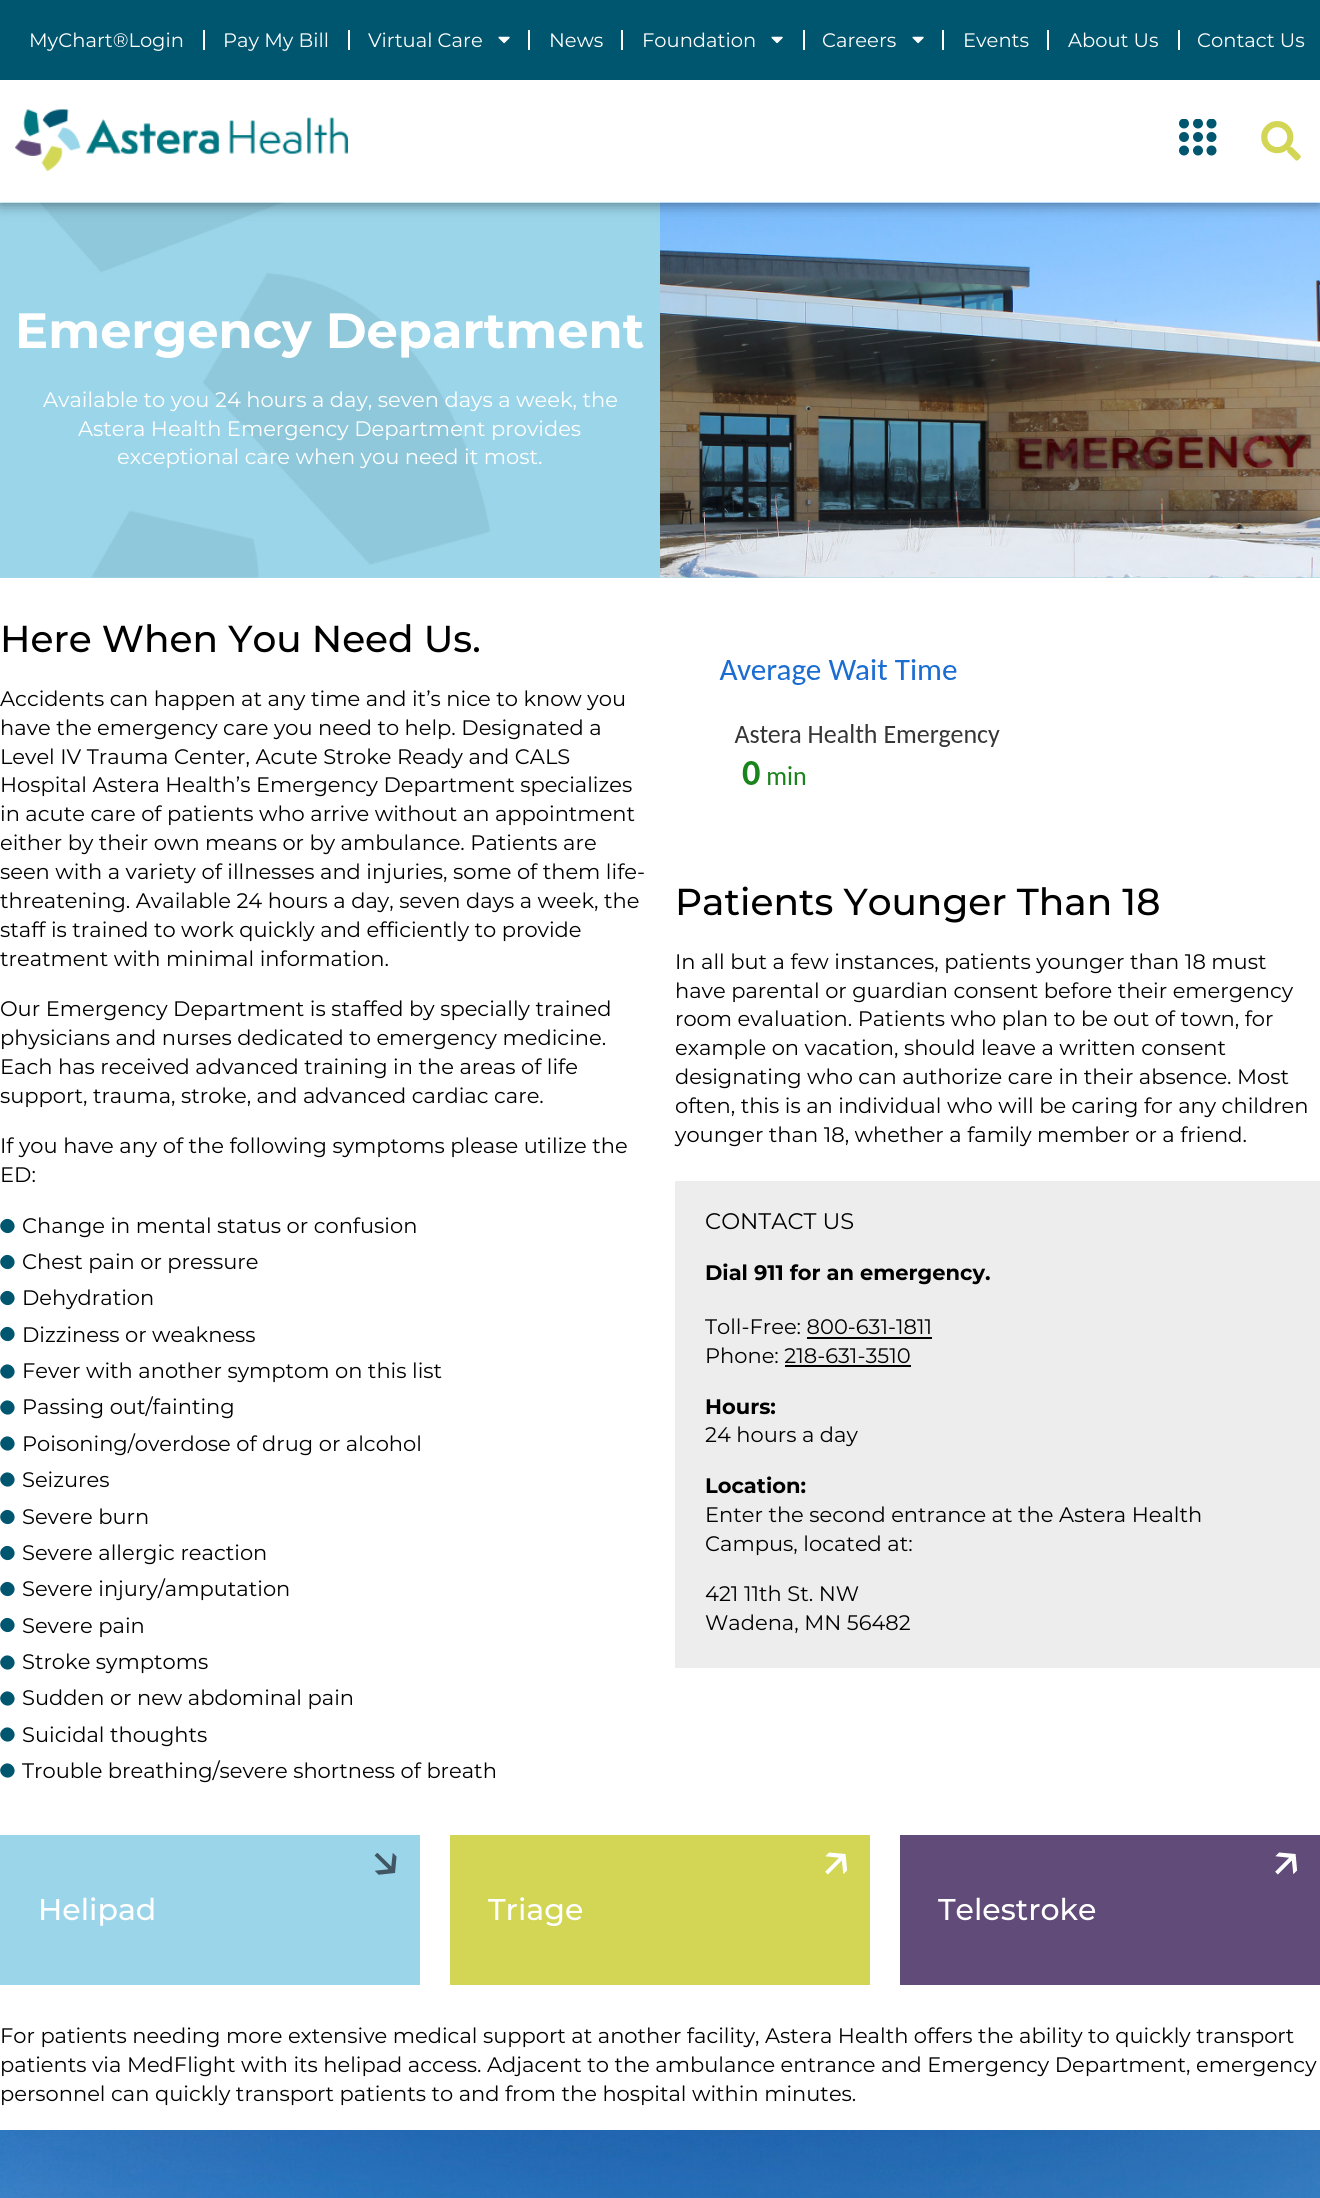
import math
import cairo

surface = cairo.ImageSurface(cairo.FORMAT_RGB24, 1320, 2198)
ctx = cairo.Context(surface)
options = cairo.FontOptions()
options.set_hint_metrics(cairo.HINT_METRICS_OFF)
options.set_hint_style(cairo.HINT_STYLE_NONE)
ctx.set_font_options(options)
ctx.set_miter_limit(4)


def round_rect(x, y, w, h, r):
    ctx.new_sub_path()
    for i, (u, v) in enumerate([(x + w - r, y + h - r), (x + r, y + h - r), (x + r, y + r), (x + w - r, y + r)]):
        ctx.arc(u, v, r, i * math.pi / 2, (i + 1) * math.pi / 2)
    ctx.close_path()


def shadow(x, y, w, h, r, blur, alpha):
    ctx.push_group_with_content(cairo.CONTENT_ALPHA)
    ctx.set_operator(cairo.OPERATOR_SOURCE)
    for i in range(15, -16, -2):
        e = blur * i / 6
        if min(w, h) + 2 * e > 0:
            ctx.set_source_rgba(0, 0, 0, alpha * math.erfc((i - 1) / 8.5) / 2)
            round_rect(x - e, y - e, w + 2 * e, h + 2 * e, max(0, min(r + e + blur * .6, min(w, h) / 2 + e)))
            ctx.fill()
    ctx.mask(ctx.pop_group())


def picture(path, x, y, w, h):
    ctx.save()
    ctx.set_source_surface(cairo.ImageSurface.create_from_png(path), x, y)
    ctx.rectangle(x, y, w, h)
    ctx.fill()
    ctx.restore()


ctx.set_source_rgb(1, 1, 1)
ctx.paint()
ctx.set_source_rgb(0.608, 0.835, 0.914)
ctx.rectangle(0, 577, 1320, 1)
ctx.fill()
picture("img5.png", 0, 202, 660, 376)
picture("img6.png", 660, 202, 660, 376)
ctx.save()
ctx.set_fill_rule(cairo.FILL_RULE_EVEN_ODD)
ctx.new_path()
ctx.move_to(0, 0)
ctx.line_to(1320, 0)
ctx.line_to(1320, 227)
ctx.line_to(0, 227)
ctx.close_path()
ctx.move_to(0, 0)
ctx.line_to(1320, 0)
ctx.line_to(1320, 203)
ctx.line_to(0, 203)
ctx.close_path()
ctx.clip()
ctx.set_source_rgb(0, 0, 0)
shadow(0, 0, 1320, 203, 0, 7.5, 0.5)
ctx.restore()
ctx.set_source_rgb(0, 0.333, 0.435)
ctx.rectangle(0, 0, 1320, 80)
ctx.fill()
ctx.select_font_face("Montserrat")
ctx.set_font_size(19.5)
ctx.set_source_rgb(1, 1, 1)
ctx.move_to(29, 47)
ctx.show_text("MyChart®Login")
ctx.rectangle(203, 30, 2, 20)
ctx.fill()
ctx.move_to(223, 47)
ctx.show_text("Pay My Bill")
ctx.rectangle(348, 30, 2, 20)
ctx.fill()
ctx.move_to(368, 47)
ctx.show_text("Virtual Care")
picture("img1.png", 498, 36, 12, 8)
ctx.rectangle(528, 30, 2, 20)
ctx.fill()
ctx.move_to(549, 47)
ctx.show_text("News")
ctx.rectangle(621, 30, 2, 20)
ctx.fill()
ctx.move_to(642, 47)
ctx.show_text("Foundation")
picture("img1.png", 771, 36, 12, 8)
ctx.rectangle(803, 30, 2, 20)
ctx.fill()
ctx.move_to(822, 47)
ctx.show_text("Careers")
picture("img1.png", 912, 36, 12, 8)
ctx.rectangle(942, 30, 2, 20)
ctx.fill()
ctx.move_to(963, 47)
ctx.show_text("Events")
ctx.rectangle(1047, 30, 2, 20)
ctx.fill()
ctx.move_to(1068, 47)
ctx.show_text("About Us")
ctx.rectangle(1178, 30, 2, 20)
ctx.fill()
ctx.move_to(1197, 47)
ctx.show_text("Contact Us")
picture("img2.png", 15, 109, 333, 62)
picture("img3.png", 1179, 119, 38, 37)
picture("img4.png", 1261, 121, 40, 40)
ctx.select_font_face("Montserrat", cairo.FONT_SLANT_NORMAL, cairo.FONT_WEIGHT_BOLD)
ctx.set_font_size(49.5)
ctx.move_to(15, 348)
ctx.show_text("Emergency Department")
ctx.select_font_face("Montserrat")
ctx.set_font_size(21)
ctx.move_to(43, 407)
ctx.show_text("Available to you 24 hours a day, seven days a week, the")
ctx.move_to(78, 436)
ctx.show_text("Astera Health Emergency Department provides")
ctx.move_to(117, 464)
ctx.show_text("exceptional care when you need it most.")
ctx.select_font_face("Montserrat Medium")
ctx.set_font_size(37.5)
ctx.set_source_rgb(0, 0, 0)
ctx.move_to(0, 652)
ctx.show_text("Here When You Need Us.")
ctx.select_font_face("Montserrat")
ctx.set_font_size(21)
ctx.move_to(0, 706)
ctx.show_text("Accidents can happen at any time and it’s nice to know you")
ctx.move_to(0, 735)
ctx.show_text("have the emergency care you need to help. Designated a")
ctx.move_to(0, 764)
ctx.show_text("Level IV Trauma Center, Acute Stroke Ready and CALS")
ctx.move_to(0, 792)
ctx.show_text("Hospital Astera Health’s Emergency Department specializes")
ctx.move_to(0, 821)
ctx.show_text("in acute care of patients who arrive without an appointment")
ctx.move_to(0, 850)
ctx.show_text("either by their own means or by ambulance. Patients are")
ctx.move_to(0, 879)
ctx.show_text("seen with a variety of illnesses and injuries, some of them life-")
ctx.move_to(0, 908)
ctx.show_text("threatening. Available 24 hours a day, seven days a week, the")
ctx.move_to(0, 937)
ctx.show_text("staff is trained to work quickly and efficiently to provide")
ctx.move_to(0, 966)
ctx.show_text("treatment with minimal information.")
ctx.move_to(0, 1016)
ctx.show_text("Our Emergency Department is staffed by specially trained")
ctx.move_to(0, 1045)
ctx.show_text("physicians and nurses dedicated to emergency medicine.")
ctx.move_to(0, 1074)
ctx.show_text("Each has received advanced training in the areas of life")
ctx.move_to(0, 1103)
ctx.show_text("support, trauma, stroke, and advanced cardiac care.")
ctx.move_to(0, 1153)
ctx.show_text("If you have any of the following symptoms please utilize the")
ctx.move_to(0, 1182)
ctx.show_text("ED:")
ctx.set_source_rgb(0, 0.333, 0.435)
ctx.new_path()
ctx.move_to(2.5, 1221)
ctx.curve_to(9, 1214.5, 19, 1224.5, 12.5, 1231)
ctx.curve_to(6, 1237.5, -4.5, 1227.5, 2.5, 1221)
ctx.close_path()
ctx.fill()
ctx.set_source_rgb(0, 0, 0)
ctx.move_to(22, 1233)
ctx.show_text("Change in mental status or confusion")
ctx.set_source_rgb(0, 0.333, 0.435)
ctx.new_path()
ctx.move_to(2.5, 1257)
ctx.curve_to(9, 1250.5, 19, 1260.5, 12.5, 1267)
ctx.curve_to(6, 1273.5, -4.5, 1263.5, 2.5, 1257)
ctx.close_path()
ctx.fill()
ctx.set_source_rgb(0, 0, 0)
ctx.move_to(22, 1269)
ctx.show_text("Chest pain or pressure")
ctx.set_source_rgb(0, 0.333, 0.435)
ctx.new_path()
ctx.move_to(2.5, 1293)
ctx.curve_to(9, 1286.5, 19, 1296.5, 12.5, 1303)
ctx.curve_to(6, 1309.5, -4.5, 1299.5, 2.5, 1293)
ctx.close_path()
ctx.fill()
ctx.set_source_rgb(0, 0, 0)
ctx.move_to(22, 1305)
ctx.show_text("Dehydration")
ctx.set_source_rgb(0, 0.333, 0.435)
ctx.new_path()
ctx.move_to(2.5, 1329)
ctx.curve_to(9, 1322.5, 19, 1332.5, 12.5, 1339)
ctx.curve_to(6, 1345.5, -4.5, 1335.5, 2.5, 1329)
ctx.close_path()
ctx.fill()
ctx.set_source_rgb(0, 0, 0)
ctx.move_to(22, 1342)
ctx.show_text("Dizziness or weakness")
ctx.set_source_rgb(0, 0.333, 0.435)
ctx.new_path()
ctx.move_to(2.5, 1366.5)
ctx.curve_to(9, 1360, 19, 1370, 12.5, 1376.5)
ctx.curve_to(6, 1383, -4.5, 1373, 2.5, 1366.5)
ctx.close_path()
ctx.fill()
ctx.set_source_rgb(0, 0, 0)
ctx.move_to(22, 1378)
ctx.show_text("Fever with another symptom on this list")
ctx.set_source_rgb(0, 0.333, 0.435)
ctx.new_path()
ctx.move_to(2.5, 1402.5)
ctx.curve_to(9, 1396, 19, 1406, 12.5, 1412.5)
ctx.curve_to(6, 1419, -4.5, 1409, 2.5, 1402.5)
ctx.close_path()
ctx.fill()
ctx.set_source_rgb(0, 0, 0)
ctx.move_to(22, 1414)
ctx.show_text("Passing out/fainting")
ctx.set_source_rgb(0, 0.333, 0.435)
ctx.new_path()
ctx.move_to(2.5, 1438.5)
ctx.curve_to(9, 1432, 19, 1442, 12.5, 1448.5)
ctx.curve_to(6, 1455, -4.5, 1445, 2.5, 1438.5)
ctx.close_path()
ctx.fill()
ctx.set_source_rgb(0, 0, 0)
ctx.move_to(22, 1451)
ctx.show_text("Poisoning/overdose of drug or alcohol")
ctx.set_source_rgb(0, 0.333, 0.435)
ctx.new_path()
ctx.move_to(2.5, 1474.5)
ctx.curve_to(9, 1468, 19, 1478, 12.5, 1484.5)
ctx.curve_to(6, 1491, -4.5, 1481, 2.5, 1474.5)
ctx.close_path()
ctx.fill()
ctx.set_source_rgb(0, 0, 0)
ctx.move_to(22, 1487)
ctx.show_text("Seizures")
ctx.set_source_rgb(0, 0.333, 0.435)
ctx.new_path()
ctx.move_to(2.5, 1512)
ctx.curve_to(9, 1505.5, 19, 1515.5, 12.5, 1522)
ctx.curve_to(6, 1528.5, -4.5, 1518.5, 2.5, 1512)
ctx.close_path()
ctx.fill()
ctx.set_source_rgb(0, 0, 0)
ctx.move_to(22, 1524)
ctx.show_text("Severe burn")
ctx.set_source_rgb(0, 0.333, 0.435)
ctx.new_path()
ctx.move_to(2.5, 1548)
ctx.curve_to(9, 1541.5, 19, 1551.5, 12.5, 1558)
ctx.curve_to(6, 1564.5, -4.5, 1554.5, 2.5, 1548)
ctx.close_path()
ctx.fill()
ctx.set_source_rgb(0, 0, 0)
ctx.move_to(22, 1560)
ctx.show_text("Severe allergic reaction")
ctx.set_source_rgb(0, 0.333, 0.435)
ctx.new_path()
ctx.move_to(2.5, 1584)
ctx.curve_to(9, 1577.5, 19, 1587.5, 12.5, 1594)
ctx.curve_to(6, 1600.5, -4.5, 1590.5, 2.5, 1584)
ctx.close_path()
ctx.fill()
ctx.set_source_rgb(0, 0, 0)
ctx.move_to(22, 1596)
ctx.show_text("Severe injury/amputation")
ctx.set_source_rgb(0, 0.333, 0.435)
ctx.new_path()
ctx.move_to(2.5, 1620)
ctx.curve_to(9, 1613.5, 19, 1623.5, 12.5, 1630)
ctx.curve_to(6, 1636.5, -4.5, 1626.5, 2.5, 1620)
ctx.close_path()
ctx.fill()
ctx.set_source_rgb(0, 0, 0)
ctx.move_to(22, 1633)
ctx.show_text("Severe pain")
ctx.set_source_rgb(0, 0.333, 0.435)
ctx.new_path()
ctx.move_to(2.5, 1657.5)
ctx.curve_to(9, 1651, 19, 1661, 12.5, 1667.5)
ctx.curve_to(6, 1674, -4.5, 1664, 2.5, 1657.5)
ctx.close_path()
ctx.fill()
ctx.set_source_rgb(0, 0, 0)
ctx.move_to(22, 1669)
ctx.show_text("Stroke symptoms")
ctx.set_source_rgb(0, 0.333, 0.435)
ctx.new_path()
ctx.move_to(2.5, 1693.5)
ctx.curve_to(9, 1687, 19, 1697, 12.5, 1703.5)
ctx.curve_to(6, 1710, -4.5, 1700, 2.5, 1693.5)
ctx.close_path()
ctx.fill()
ctx.set_source_rgb(0, 0, 0)
ctx.move_to(22, 1705)
ctx.show_text("Sudden or new abdominal pain")
ctx.set_source_rgb(0, 0.333, 0.435)
ctx.new_path()
ctx.move_to(2.5, 1729.5)
ctx.curve_to(9, 1723, 19, 1733, 12.5, 1739.5)
ctx.curve_to(6, 1746, -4.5, 1736, 2.5, 1729.5)
ctx.close_path()
ctx.fill()
ctx.set_source_rgb(0, 0, 0)
ctx.move_to(22, 1742)
ctx.show_text("Suicidal thoughts")
ctx.set_source_rgb(0, 0.333, 0.435)
ctx.new_path()
ctx.move_to(2.5, 1765.5)
ctx.curve_to(9, 1759, 19, 1769, 12.5, 1775.5)
ctx.curve_to(6, 1782, -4.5, 1772, 2.5, 1765.5)
ctx.close_path()
ctx.fill()
ctx.set_source_rgb(0, 0, 0)
ctx.move_to(22, 1778)
ctx.show_text("Trouble breathing/severe shortness of breath")
picture("img7.png", 719, 659, 281, 126)
ctx.select_font_face("Montserrat Medium")
ctx.set_font_size(37.5)
ctx.move_to(675, 915)
ctx.show_text("Patients Younger Than 18")
ctx.select_font_face("Montserrat")
ctx.set_font_size(21)
ctx.move_to(675, 969)
ctx.show_text("In all but a few instances, patients younger than 18 must")
ctx.move_to(675, 998)
ctx.show_text("have parental or guardian consent before their emergency")
ctx.move_to(675, 1026)
ctx.show_text("room evaluation. Patients who plan to be out of town, for")
ctx.move_to(675, 1055)
ctx.show_text("example on vacation, should leave a written consent")
ctx.move_to(675, 1084)
ctx.show_text("designating who can authorize care in their absence. Most")
ctx.move_to(675, 1113)
ctx.show_text("often, this is an individual who will be caring for any children")
ctx.move_to(675, 1142)
ctx.show_text("younger than 18, whether a family member or a friend.")
ctx.set_source_rgb(0.929, 0.929, 0.929)
ctx.rectangle(675, 1181, 645, 487)
ctx.fill()
ctx.set_font_size(22.5)
ctx.set_source_rgb(0, 0, 0)
ctx.move_to(705, 1229)
ctx.show_text("CONTACT US")
ctx.select_font_face("Montserrat", cairo.FONT_SLANT_NORMAL, cairo.FONT_WEIGHT_BOLD)
ctx.set_font_size(21)
ctx.move_to(705, 1280)
ctx.show_text("Dial 911 for an emergency.")
ctx.select_font_face("Montserrat")
ctx.move_to(705, 1334)
ctx.show_text("Toll-Free: 800-631-1811")
ctx.rectangle(807, 1337, 125, 2)
ctx.fill()
ctx.move_to(705, 1363)
ctx.show_text("Phone: 218-631-3510")
ctx.rectangle(785, 1365, 126, 2)
ctx.fill()
ctx.select_font_face("Montserrat", cairo.FONT_SLANT_NORMAL, cairo.FONT_WEIGHT_BOLD)
ctx.move_to(705, 1414)
ctx.show_text("Hours:")
ctx.select_font_face("Montserrat")
ctx.move_to(705, 1442)
ctx.show_text("24 hours a day")
ctx.select_font_face("Montserrat", cairo.FONT_SLANT_NORMAL, cairo.FONT_WEIGHT_BOLD)
ctx.move_to(705, 1493)
ctx.show_text("Location:")
ctx.select_font_face("Montserrat")
ctx.move_to(705, 1522)
ctx.show_text("Enter the second entrance at the Astera Health")
ctx.move_to(705, 1551)
ctx.show_text("Campus, located at:")
ctx.move_to(705, 1601)
ctx.show_text("421 11th St. NW")
ctx.move_to(705, 1630)
ctx.show_text("Wadena, MN 56482")
ctx.set_source_rgb(0.608, 0.835, 0.914)
ctx.rectangle(0, 1835, 420, 150)
ctx.fill()
picture("img8.png", 374, 1853, 23, 22)
ctx.select_font_face("Montserrat Medium")
ctx.set_font_size(30)
ctx.set_source_rgb(1, 1, 1)
ctx.move_to(38, 1920)
ctx.show_text("Helipad")
ctx.set_source_rgb(0.824, 0.839, 0.329)
ctx.rectangle(450, 1835, 420, 150)
ctx.fill()
picture("img9.png", 825, 1852, 23, 23)
ctx.set_source_rgb(1, 1, 1)
ctx.move_to(488, 1920)
ctx.show_text("Triage")
ctx.set_source_rgb(0.376, 0.294, 0.475)
ctx.rectangle(900, 1835, 420, 150)
ctx.fill()
picture("img10.png", 1275, 1852, 23, 23)
ctx.set_source_rgb(1, 1, 1)
ctx.move_to(938, 1920)
ctx.show_text("Telestroke")
ctx.select_font_face("Montserrat")
ctx.set_font_size(21)
ctx.set_source_rgb(0, 0, 0)
ctx.move_to(0, 2043)
ctx.show_text("For patients needing more extensive medical support at another facility, Astera Health offers the ability to quickly transport")
ctx.move_to(0, 2072)
ctx.show_text("patients via MedFlight with its helipad access. Adjacent to the ambulance entrance and Emergency Department, emergency")
ctx.move_to(0, 2101)
ctx.show_text("personnel can quickly transport patients to and from the hospital within minutes.")
picture("img11.png", 0, 2130, 1320, 68)
surface.write_to_png("page.png")
